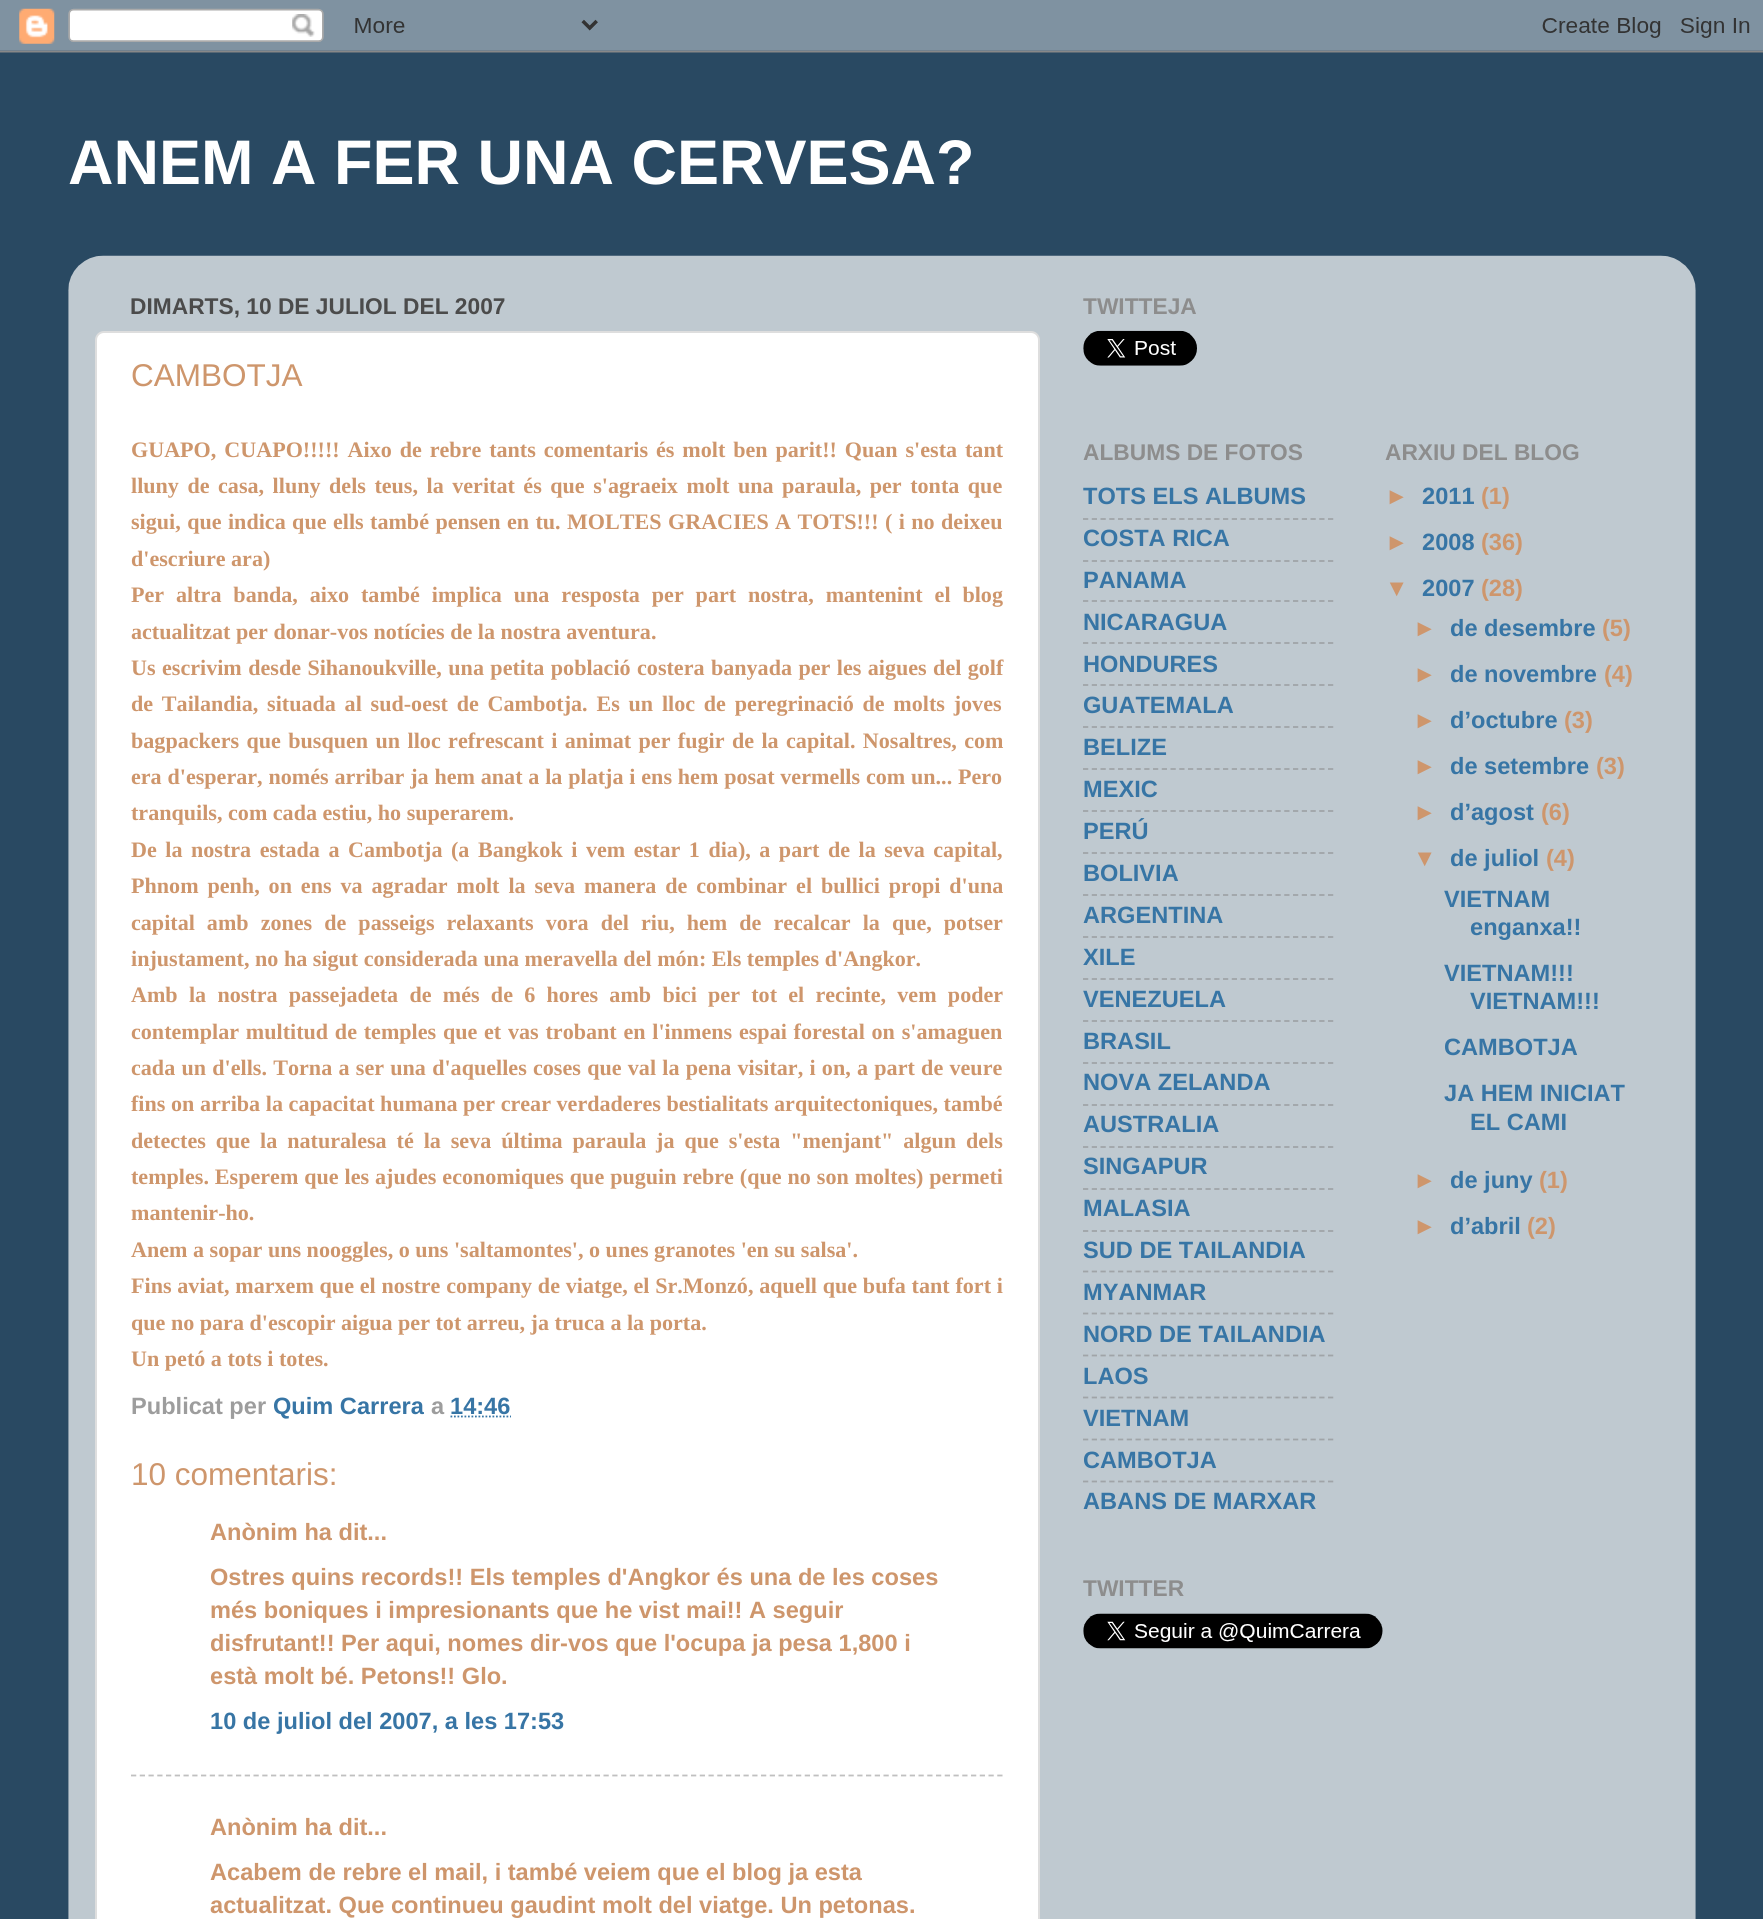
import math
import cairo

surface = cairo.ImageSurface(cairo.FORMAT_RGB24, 1763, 1919)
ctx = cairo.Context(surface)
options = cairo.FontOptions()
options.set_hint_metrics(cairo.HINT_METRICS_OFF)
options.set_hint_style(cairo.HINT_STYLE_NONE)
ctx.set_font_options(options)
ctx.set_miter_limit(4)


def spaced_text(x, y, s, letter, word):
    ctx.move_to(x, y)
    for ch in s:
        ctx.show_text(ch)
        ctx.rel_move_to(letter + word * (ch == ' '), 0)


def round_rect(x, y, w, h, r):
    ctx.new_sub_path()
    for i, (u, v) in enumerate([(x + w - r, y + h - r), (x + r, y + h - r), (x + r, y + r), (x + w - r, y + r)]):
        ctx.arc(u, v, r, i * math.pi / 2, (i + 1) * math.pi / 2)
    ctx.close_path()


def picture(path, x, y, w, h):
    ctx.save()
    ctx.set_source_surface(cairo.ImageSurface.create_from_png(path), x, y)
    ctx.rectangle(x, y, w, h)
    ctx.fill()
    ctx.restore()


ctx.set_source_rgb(0.161, 0.286, 0.384)
ctx.paint()
picture("img1.png", 0, 0, 1763, 53)
ctx.select_font_face("Liberation Sans", cairo.FONT_SLANT_NORMAL, cairo.FONT_WEIGHT_BOLD)
ctx.set_font_size(63)
ctx.set_source_rgb(1, 1, 1)
ctx.move_to(68, 184)
ctx.show_text("ANEM A FER UNA CERVESA?")
picture("img2.png", 68, 255, 1628, 1664)
ctx.set_font_size(22.75)
ctx.set_source_rgb(0.294, 0.294, 0.294)
ctx.move_to(130, 314)
ctx.show_text("DIMARTS, 10 DE JULIOL DEL 2007")
ctx.set_source_rgb(1, 1, 1)
round_rect(96, 332, 943, 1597, 8)
ctx.fill_preserve()
ctx.set_source_rgb(0.871, 0.871, 0.871)
ctx.stroke()
ctx.select_font_face("Liberation Sans")
ctx.set_font_size(31.5)
ctx.set_source_rgb(0.808, 0.588, 0.424)
ctx.move_to(131, 386)
ctx.show_text("CAMBOTJA")
ctx.select_font_face("Liberation Serif", cairo.FONT_SLANT_NORMAL, cairo.FONT_WEIGHT_BOLD)
ctx.set_font_size(22.1)
spaced_text(131, 457, "GUAPO, CUAPO!!!!! Aixo de rebre tants comentaris és molt ben parit!! Quan s'esta tant", 0, 2.4)
spaced_text(131, 493, "lluny de casa, lluny dels teus, la veritat és que s'agraeix molt una paraula, per tonta que", 0, 3)
spaced_text(131, 529, "sigui, que indica que ells també pensen en tu. MOLTES GRACIES A TOTS!!! ( i no deixeu", 0, 0.9)
ctx.move_to(131, 566)
ctx.show_text("d'escriure ara)")
spaced_text(131, 602, "Per altra banda, aixo també implica una resposta per part nostra, mantenint el blog", 0, 6.4)
ctx.move_to(131, 639)
ctx.show_text("actualitzat per donar-vos notícies de la nostra aventura.")
spaced_text(131, 675, "Us escrivim desde Sihanoukville, una petita població costera banyada per les aigues del golf", 0, 0.9)
spaced_text(131, 711, "de Tailandia, situada al sud-oest de Cambotja. Es un lloc de peregrinació de molts joves", 0, 3.25)
spaced_text(131, 748, "bagpackers que busquen un lloc refrescant i animat per fugir de la capital. Nosaltres, com", 0, 1.9)
spaced_text(131, 784, "era d'esperar, només arribar ja hem anat a la platja i ens hem posat vermells com un... Pero", 0, 0.3)
ctx.move_to(131, 820)
ctx.show_text("tranquils, com cada estiu, ho superarem.")
spaced_text(131, 857, "De la nostra estada a Cambotja (a Bangkok i vem estar 1 dia), a part de la seva capital,", 0, 3)
spaced_text(131, 893, "Phnom penh, on ens va agradar molt la seva manera de combinar el bullici propi d'una", 0, 3.4)
spaced_text(131, 930, "capital amb zones de passeigs relaxants vora del riu, hem de recalcar la que, potser", 0, 6.5)
ctx.move_to(131, 966)
ctx.show_text("injustament, no ha sigut considerada una meravella del món: Els temples d'Angkor.")
spaced_text(131, 1002, "Amb la nostra passejadeta de més de 6 hores amb bici per tot el recinte, vem poder", 0, 5.75)
spaced_text(131, 1039, "contemplar multitud de temples que et vas trobant en l'inmens espai forestal on s'amaguen", 0, 1.25)
spaced_text(131, 1075, "cada un d'ells. Torna a ser una d'aquelles coses que val la pena visitar, i on, a part de veure", 0, 0.75)
spaced_text(131, 1111, "fins on arriba la capacitat humana per crear verdaderes bestialitats arquitectoniques, també", 0, 0.1)
spaced_text(131, 1148, "detectes que la naturalesa té la seva última paraula ja que s'esta \"menjant\" algun dels", 0, 4.4)
spaced_text(131, 1184, "temples. Esperem que les ajudes economiques que puguin rebre (que no son moltes) permeti", 0, 0.4)
ctx.move_to(131, 1220)
ctx.show_text("mantenir-ho.")
ctx.move_to(131, 1257)
ctx.show_text("Anem a sopar uns nooggles, o uns 'saltamontes', o unes granotes 'en su salsa'.")
spaced_text(131, 1293, "Fins aviat, marxem que el nostre company de viatge, el Sr.Monzó, aquell que bufa tant fort i", 0, 0.25)
ctx.move_to(131, 1330)
ctx.show_text("que no para d'escopir aigua per tot arreu, ja truca a la porta.")
ctx.move_to(131, 1366)
ctx.show_text("Un petó a tots i totes.")
ctx.select_font_face("Liberation Sans", cairo.FONT_SLANT_NORMAL, cairo.FONT_WEIGHT_BOLD)
ctx.set_font_size(23.6)
ctx.set_source_rgb(0.616, 0.616, 0.616)
ctx.move_to(131, 1414)
ctx.show_text("Publicat per")
ctx.set_source_rgb(0.216, 0.459, 0.647)
ctx.move_to(273, 1414)
ctx.show_text("Quim Carrera")
ctx.set_source_rgb(0.616, 0.616, 0.616)
ctx.move_to(431, 1414)
ctx.show_text("a")
ctx.set_source_rgb(0.216, 0.459, 0.647)
ctx.move_to(450, 1414)
ctx.show_text("14:46")
ctx.new_path()
ctx.move_to(450.5, 1416.5)
ctx.line_to(511, 1416.5)
ctx.set_line_width(1.8)
ctx.set_dash([1.75, 1.75])
ctx.stroke()
ctx.select_font_face("Liberation Sans")
ctx.set_font_size(31.5)
ctx.set_source_rgb(0.808, 0.588, 0.424)
ctx.move_to(131, 1485)
ctx.show_text("10 comentaris:")
ctx.select_font_face("Liberation Sans", cairo.FONT_SLANT_NORMAL, cairo.FONT_WEIGHT_BOLD)
ctx.set_font_size(23.6)
ctx.move_to(210, 1540)
ctx.show_text("Anònim ha dit...")
ctx.move_to(210, 1585)
ctx.show_text("Ostres quins records!! Els temples d'Angkor és una de les coses")
ctx.move_to(210, 1618)
ctx.show_text("més boniques i impresionants que he vist mai!! A seguir")
ctx.move_to(210, 1651)
ctx.show_text("disfrutant!! Per aqui, nomes dir-vos que l'ocupa ja pesa 1,800 i")
ctx.move_to(210, 1684)
ctx.show_text("està molt bé. Petons!! Glo.")
ctx.set_source_rgb(0.216, 0.459, 0.647)
ctx.move_to(210, 1729)
ctx.show_text("10 de juliol del 2007, a les 17:53")
ctx.new_path()
ctx.move_to(131, 1775.5)
ctx.line_to(1003, 1775.5)
ctx.set_source_rgb(0.753, 0.753, 0.753)
ctx.set_dash([5.25, 3.5])
ctx.stroke()
ctx.set_source_rgb(0.808, 0.588, 0.424)
ctx.move_to(210, 1835)
ctx.show_text("Anònim ha dit...")
ctx.move_to(210, 1880)
ctx.show_text("Acabem de rebre el mail, i també veiem que el blog ja esta")
ctx.move_to(210, 1913)
ctx.show_text("actualitzat. Que continueu gaudint molt del viatge. Un petonas.")
ctx.set_font_size(22.75)
ctx.set_source_rgb(0.553, 0.553, 0.553)
ctx.move_to(1083, 314)
ctx.show_text("TWITTEJA")
picture("img3.png", 1083, 330, 114, 36)
ctx.move_to(1083, 460)
ctx.show_text("ALBUMS DE FOTOS")
ctx.set_font_size(23.6)
ctx.set_source_rgb(0.216, 0.459, 0.647)
ctx.move_to(1083, 504)
ctx.show_text("TOTS ELS ALBUMS")
ctx.new_path()
ctx.move_to(1083, 519)
ctx.line_to(1333.5, 519)
ctx.set_source_rgb(0.627, 0.643, 0.659)
ctx.stroke()
ctx.set_source_rgb(0.216, 0.459, 0.647)
ctx.move_to(1083, 546)
ctx.show_text("COSTA RICA")
ctx.new_path()
ctx.move_to(1083, 561)
ctx.line_to(1333.5, 561)
ctx.set_source_rgb(0.627, 0.643, 0.659)
ctx.stroke()
ctx.set_source_rgb(0.216, 0.459, 0.647)
ctx.move_to(1083, 588)
ctx.show_text("PANAMA")
ctx.new_path()
ctx.move_to(1083, 601)
ctx.line_to(1333.5, 601)
ctx.set_source_rgb(0.627, 0.643, 0.659)
ctx.stroke()
ctx.set_source_rgb(0.216, 0.459, 0.647)
ctx.move_to(1083, 630)
ctx.show_text("NICARAGUA")
ctx.new_path()
ctx.move_to(1083, 643)
ctx.line_to(1333.5, 643)
ctx.set_source_rgb(0.627, 0.643, 0.659)
ctx.stroke()
ctx.set_source_rgb(0.216, 0.459, 0.647)
ctx.move_to(1083, 672)
ctx.show_text("HONDURES")
ctx.new_path()
ctx.move_to(1083, 685)
ctx.line_to(1333.5, 685)
ctx.set_source_rgb(0.627, 0.643, 0.659)
ctx.stroke()
ctx.set_source_rgb(0.216, 0.459, 0.647)
ctx.move_to(1083, 713)
ctx.show_text("GUATEMALA")
ctx.new_path()
ctx.move_to(1083, 727)
ctx.line_to(1333.5, 727)
ctx.set_source_rgb(0.627, 0.643, 0.659)
ctx.stroke()
ctx.set_source_rgb(0.216, 0.459, 0.647)
ctx.move_to(1083, 755)
ctx.show_text("BELIZE")
ctx.new_path()
ctx.move_to(1083, 769)
ctx.line_to(1333.5, 769)
ctx.set_source_rgb(0.627, 0.643, 0.659)
ctx.stroke()
ctx.set_source_rgb(0.216, 0.459, 0.647)
ctx.move_to(1083, 797)
ctx.show_text("MEXIC")
ctx.new_path()
ctx.move_to(1083, 811)
ctx.line_to(1333.5, 811)
ctx.set_source_rgb(0.627, 0.643, 0.659)
ctx.stroke()
ctx.set_source_rgb(0.216, 0.459, 0.647)
ctx.move_to(1083, 839)
ctx.show_text("PERÚ")
ctx.new_path()
ctx.move_to(1083, 853)
ctx.line_to(1333.5, 853)
ctx.set_source_rgb(0.627, 0.643, 0.659)
ctx.stroke()
ctx.set_source_rgb(0.216, 0.459, 0.647)
ctx.move_to(1083, 881)
ctx.show_text("BOLIVIA")
ctx.new_path()
ctx.move_to(1083, 895)
ctx.line_to(1333.5, 895)
ctx.set_source_rgb(0.627, 0.643, 0.659)
ctx.stroke()
ctx.set_source_rgb(0.216, 0.459, 0.647)
ctx.move_to(1083, 923)
ctx.show_text("ARGENTINA")
ctx.new_path()
ctx.move_to(1083, 937)
ctx.line_to(1333.5, 937)
ctx.set_source_rgb(0.627, 0.643, 0.659)
ctx.stroke()
ctx.set_source_rgb(0.216, 0.459, 0.647)
ctx.move_to(1083, 965)
ctx.show_text("XILE")
ctx.new_path()
ctx.move_to(1083, 979)
ctx.line_to(1333.5, 979)
ctx.set_source_rgb(0.627, 0.643, 0.659)
ctx.stroke()
ctx.set_source_rgb(0.216, 0.459, 0.647)
ctx.move_to(1083, 1007)
ctx.show_text("VENEZUELA")
ctx.new_path()
ctx.move_to(1083, 1021)
ctx.line_to(1333.5, 1021)
ctx.set_source_rgb(0.627, 0.643, 0.659)
ctx.stroke()
ctx.set_source_rgb(0.216, 0.459, 0.647)
ctx.move_to(1083, 1049)
ctx.show_text("BRASIL")
ctx.new_path()
ctx.move_to(1083, 1063)
ctx.line_to(1333.5, 1063)
ctx.set_source_rgb(0.627, 0.643, 0.659)
ctx.stroke()
ctx.set_source_rgb(0.216, 0.459, 0.647)
ctx.move_to(1083, 1090)
ctx.show_text("NOVA ZELANDA")
ctx.new_path()
ctx.move_to(1083, 1105)
ctx.line_to(1333.5, 1105)
ctx.set_source_rgb(0.627, 0.643, 0.659)
ctx.stroke()
ctx.set_source_rgb(0.216, 0.459, 0.647)
ctx.move_to(1083, 1132)
ctx.show_text("AUSTRALIA")
ctx.new_path()
ctx.move_to(1083, 1147)
ctx.line_to(1333.5, 1147)
ctx.set_source_rgb(0.627, 0.643, 0.659)
ctx.stroke()
ctx.set_source_rgb(0.216, 0.459, 0.647)
ctx.move_to(1083, 1174)
ctx.show_text("SINGAPUR")
ctx.new_path()
ctx.move_to(1083, 1189)
ctx.line_to(1333.5, 1189)
ctx.set_source_rgb(0.627, 0.643, 0.659)
ctx.stroke()
ctx.set_source_rgb(0.216, 0.459, 0.647)
ctx.move_to(1083, 1216)
ctx.show_text("MALASIA")
ctx.new_path()
ctx.move_to(1083, 1231)
ctx.line_to(1333.5, 1231)
ctx.set_source_rgb(0.627, 0.643, 0.659)
ctx.stroke()
ctx.set_source_rgb(0.216, 0.459, 0.647)
ctx.move_to(1083, 1258)
ctx.show_text("SUD DE TAILANDIA")
ctx.new_path()
ctx.move_to(1083, 1271.5)
ctx.line_to(1333.5, 1271.5)
ctx.set_source_rgb(0.627, 0.643, 0.659)
ctx.stroke()
ctx.set_source_rgb(0.216, 0.459, 0.647)
ctx.move_to(1083, 1300)
ctx.show_text("MYANMAR")
ctx.new_path()
ctx.move_to(1083, 1313.5)
ctx.line_to(1333.5, 1313.5)
ctx.set_source_rgb(0.627, 0.643, 0.659)
ctx.stroke()
ctx.set_source_rgb(0.216, 0.459, 0.647)
ctx.move_to(1083, 1342)
ctx.show_text("NORD DE TAILANDIA")
ctx.new_path()
ctx.move_to(1083, 1355.5)
ctx.line_to(1333.5, 1355.5)
ctx.set_source_rgb(0.627, 0.643, 0.659)
ctx.stroke()
ctx.set_source_rgb(0.216, 0.459, 0.647)
ctx.move_to(1083, 1384)
ctx.show_text("LAOS")
ctx.new_path()
ctx.move_to(1083, 1397.5)
ctx.line_to(1333.5, 1397.5)
ctx.set_source_rgb(0.627, 0.643, 0.659)
ctx.stroke()
ctx.set_source_rgb(0.216, 0.459, 0.647)
ctx.move_to(1083, 1426)
ctx.show_text("VIETNAM")
ctx.new_path()
ctx.move_to(1083, 1439.5)
ctx.line_to(1333.5, 1439.5)
ctx.set_source_rgb(0.627, 0.643, 0.659)
ctx.stroke()
ctx.set_source_rgb(0.216, 0.459, 0.647)
ctx.move_to(1083, 1468)
ctx.show_text("CAMBOTJA")
ctx.new_path()
ctx.move_to(1083, 1481.5)
ctx.line_to(1333.5, 1481.5)
ctx.set_source_rgb(0.627, 0.643, 0.659)
ctx.stroke()
ctx.set_source_rgb(0.216, 0.459, 0.647)
ctx.move_to(1083, 1509)
ctx.show_text("ABANS DE MARXAR")
ctx.set_font_size(22.75)
ctx.set_source_rgb(0.553, 0.553, 0.553)
ctx.move_to(1385, 460)
ctx.show_text("ARXIU DEL BLOG")
ctx.set_font_size(23.6)
ctx.set_source_rgb(0.808, 0.588, 0.424)
ctx.move_to(1385, 504)
ctx.show_text("►")
ctx.set_source_rgb(0.216, 0.459, 0.647)
ctx.move_to(1422, 504)
ctx.show_text("2011")
ctx.set_source_rgb(0.808, 0.588, 0.424)
ctx.move_to(1481, 504)
ctx.show_text("(1)")
ctx.move_to(1385, 550)
ctx.show_text("►")
ctx.set_source_rgb(0.216, 0.459, 0.647)
ctx.move_to(1422, 550)
ctx.show_text("2008")
ctx.set_source_rgb(0.808, 0.588, 0.424)
ctx.move_to(1481, 550)
ctx.show_text("(36)")
ctx.move_to(1385, 596)
ctx.show_text("▼")
ctx.set_source_rgb(0.216, 0.459, 0.647)
ctx.move_to(1422, 596)
ctx.show_text("2007")
ctx.set_source_rgb(0.808, 0.588, 0.424)
ctx.move_to(1481, 596)
ctx.show_text("(28)")
ctx.move_to(1413, 636)
ctx.show_text("►")
ctx.set_source_rgb(0.216, 0.459, 0.647)
ctx.move_to(1450, 636)
ctx.show_text("de desembre")
ctx.set_source_rgb(0.808, 0.588, 0.424)
ctx.move_to(1602, 636)
ctx.show_text("(5)")
ctx.move_to(1413, 682)
ctx.show_text("►")
ctx.set_source_rgb(0.216, 0.459, 0.647)
ctx.move_to(1450, 682)
ctx.show_text("de novembre")
ctx.set_source_rgb(0.808, 0.588, 0.424)
ctx.move_to(1604, 682)
ctx.show_text("(4)")
ctx.move_to(1413, 728)
ctx.show_text("►")
ctx.set_source_rgb(0.216, 0.459, 0.647)
ctx.move_to(1450, 728)
ctx.show_text("d’octubre")
ctx.set_source_rgb(0.808, 0.588, 0.424)
ctx.move_to(1564, 728)
ctx.show_text("(3)")
ctx.move_to(1413, 774)
ctx.show_text("►")
ctx.set_source_rgb(0.216, 0.459, 0.647)
ctx.move_to(1450, 774)
ctx.show_text("de setembre")
ctx.set_source_rgb(0.808, 0.588, 0.424)
ctx.move_to(1596, 774)
ctx.show_text("(3)")
ctx.move_to(1413, 820)
ctx.show_text("►")
ctx.set_source_rgb(0.216, 0.459, 0.647)
ctx.move_to(1450, 820)
ctx.show_text("d’agost")
ctx.set_source_rgb(0.808, 0.588, 0.424)
ctx.move_to(1541, 820)
ctx.show_text("(6)")
ctx.move_to(1413, 866)
ctx.show_text("▼")
ctx.set_source_rgb(0.216, 0.459, 0.647)
ctx.move_to(1450, 866)
ctx.show_text("de juliol")
ctx.set_source_rgb(0.808, 0.588, 0.424)
ctx.move_to(1546, 866)
ctx.show_text("(4)")
ctx.set_source_rgb(0.216, 0.459, 0.647)
ctx.move_to(1444, 907)
ctx.show_text("VIETNAM")
ctx.move_to(1470, 935)
ctx.show_text("enganxa!!")
ctx.move_to(1444, 981)
ctx.show_text("VIETNAM!!!")
ctx.move_to(1470, 1009)
ctx.show_text("VIETNAM!!!")
ctx.move_to(1444, 1055)
ctx.show_text("CAMBOTJA")
ctx.move_to(1444, 1101)
ctx.show_text("JA HEM INICIAT")
ctx.move_to(1470, 1130)
ctx.show_text("EL CAMI")
ctx.set_source_rgb(0.808, 0.588, 0.424)
ctx.move_to(1413, 1188)
ctx.show_text("►")
ctx.set_source_rgb(0.216, 0.459, 0.647)
ctx.move_to(1450, 1188)
ctx.show_text("de juny")
ctx.set_source_rgb(0.808, 0.588, 0.424)
ctx.move_to(1539, 1188)
ctx.show_text("(1)")
ctx.move_to(1413, 1234)
ctx.show_text("►")
ctx.set_source_rgb(0.216, 0.459, 0.647)
ctx.move_to(1450, 1234)
ctx.show_text("d’abril")
ctx.set_source_rgb(0.808, 0.588, 0.424)
ctx.move_to(1527, 1234)
ctx.show_text("(2)")
ctx.set_font_size(22.75)
ctx.set_source_rgb(0.553, 0.553, 0.553)
ctx.move_to(1083, 1596)
ctx.show_text("TWITTER")
picture("img4.png", 1083, 1613, 300, 36)
surface.write_to_png("page.png")
